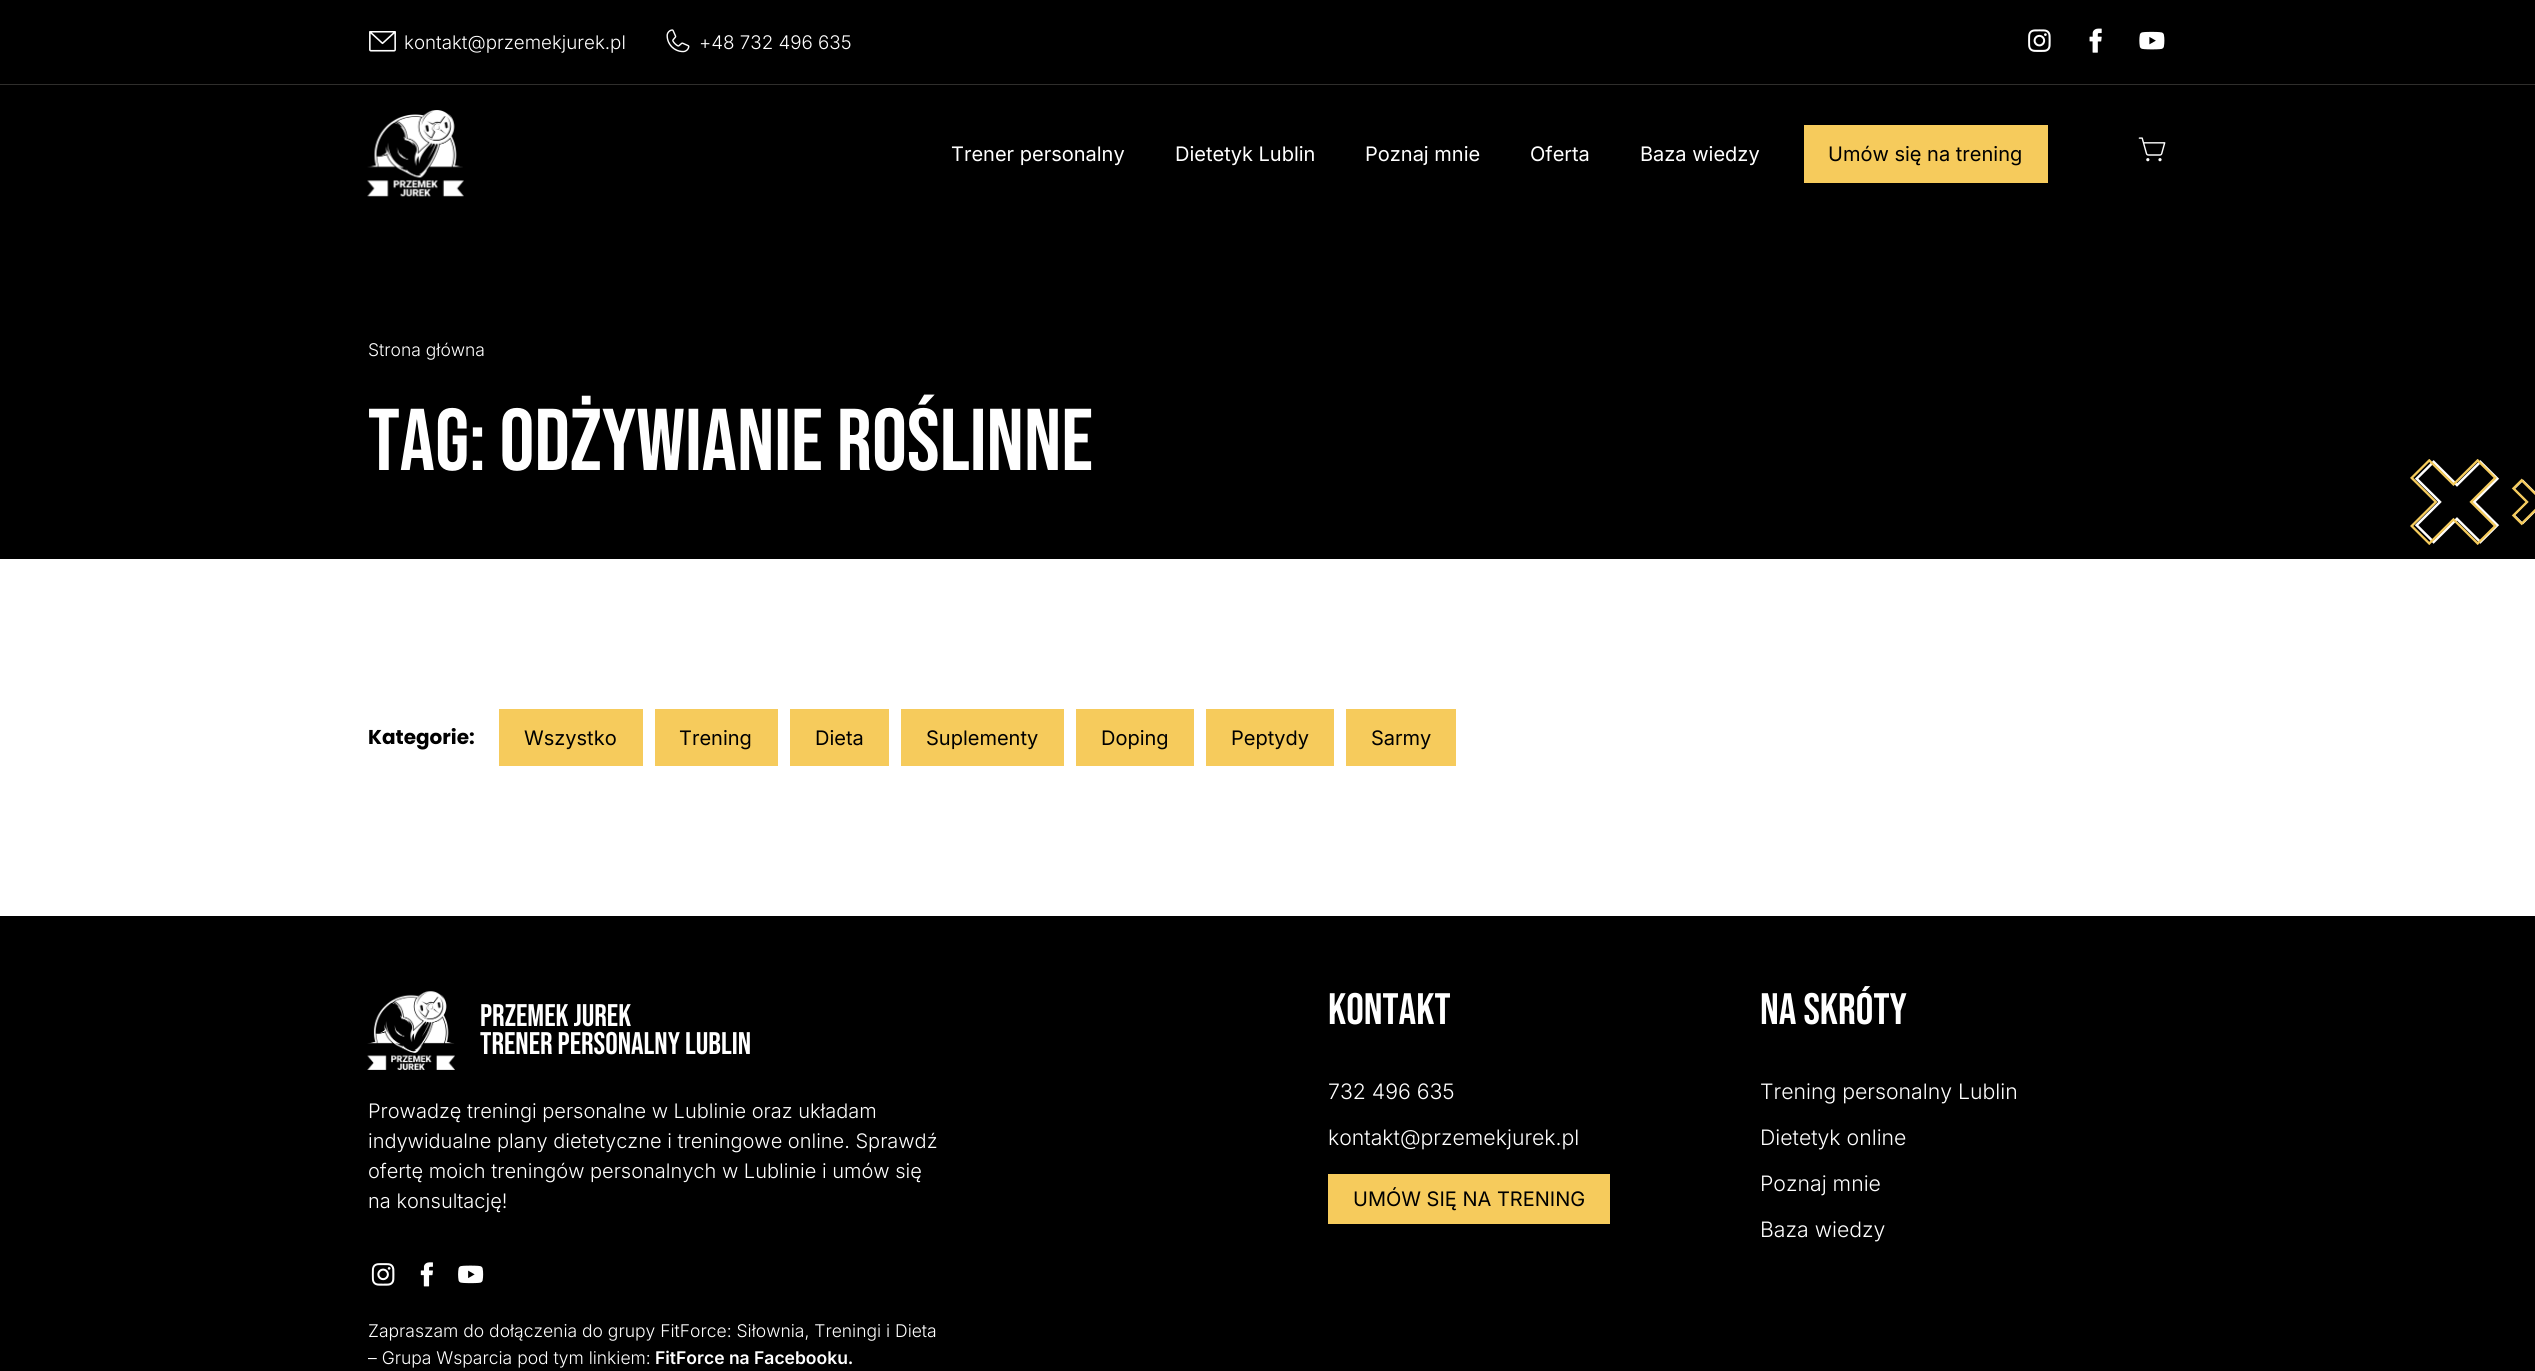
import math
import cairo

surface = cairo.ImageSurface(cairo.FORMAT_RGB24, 2535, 1371)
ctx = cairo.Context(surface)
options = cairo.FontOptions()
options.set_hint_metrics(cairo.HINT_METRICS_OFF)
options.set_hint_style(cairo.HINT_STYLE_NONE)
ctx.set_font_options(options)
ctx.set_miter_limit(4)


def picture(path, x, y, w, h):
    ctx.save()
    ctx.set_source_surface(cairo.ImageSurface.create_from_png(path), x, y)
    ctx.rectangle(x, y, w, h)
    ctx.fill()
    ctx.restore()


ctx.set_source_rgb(1, 1, 1)
ctx.paint()
ctx.set_source_rgb(0, 0, 0)
ctx.rectangle(0, 0, 2535, 559)
ctx.fill()
ctx.set_source_rgb(0.184, 0.18, 0.173)
ctx.rectangle(0, 84, 2535, 1)
ctx.fill()
picture("img1.png", 369, 31, 27, 21)
ctx.select_font_face("Inter Light")
ctx.set_font_size(18.75)
ctx.set_source_rgb(1, 1, 1)
ctx.move_to(404, 49)
ctx.show_text("kontakt@przemekjurek.pl")
picture("img2.png", 666, 29, 24, 24)
ctx.move_to(699, 49)
ctx.show_text("+48 732 496 635")
picture("img3.png", 2028, 29, 23, 23)
picture("img4.png", 2089, 28, 13, 25)
picture("img5.png", 2139, 31, 26, 19)
picture("img6.png", 367, 110, 97, 87)
ctx.select_font_face("Inter")
ctx.set_font_size(20)
ctx.move_to(951, 161)
ctx.show_text("Trener personalny")
ctx.move_to(1175, 161)
ctx.show_text("Dietetyk Lublin")
ctx.move_to(1365, 161)
ctx.show_text("Poznaj mnie")
ctx.move_to(1530, 161)
ctx.show_text("Oferta")
ctx.move_to(1640, 161)
ctx.show_text("Baza wiedzy")
ctx.set_source_rgb(0.961, 0.796, 0.361)
ctx.rectangle(1804, 125, 244, 58)
ctx.fill()
ctx.set_source_rgb(0, 0, 0)
ctx.move_to(1828, 161)
ctx.show_text("Umów się na trening")
picture("img7.png", 2138, 137, 28, 25)
ctx.select_font_face("Inter Light")
ctx.set_font_size(17.5)
ctx.set_source_rgb(1, 1, 1)
ctx.move_to(368, 356)
ctx.show_text("Strona główna")
ctx.select_font_face("Bebas Neue")
ctx.set_font_size(87.5)
ctx.move_to(368, 470)
ctx.show_text("Tag: odżywianie roślinne")
picture("img8.png", 2410, 459, 125, 86)
ctx.select_font_face("Poppins", cairo.FONT_SLANT_NORMAL, cairo.FONT_WEIGHT_BOLD)
ctx.set_font_size(20)
ctx.set_source_rgb(0, 0, 0)
ctx.move_to(368, 744)
ctx.show_text("Kategorie:")
ctx.set_source_rgb(0.961, 0.796, 0.361)
ctx.rectangle(499, 709, 144, 57)
ctx.fill()
ctx.select_font_face("Inter")
ctx.set_source_rgb(0, 0, 0)
ctx.move_to(524, 745)
ctx.show_text("Wszystko")
ctx.set_source_rgb(0.961, 0.796, 0.361)
ctx.rectangle(655, 709, 123, 57)
ctx.fill()
ctx.set_source_rgb(0, 0, 0)
ctx.move_to(679, 745)
ctx.show_text("Trening")
ctx.set_source_rgb(0.961, 0.796, 0.361)
ctx.rectangle(790, 709, 99, 57)
ctx.fill()
ctx.set_source_rgb(0, 0, 0)
ctx.move_to(815, 745)
ctx.show_text("Dieta")
ctx.set_source_rgb(0.961, 0.796, 0.361)
ctx.rectangle(901, 709, 163, 57)
ctx.fill()
ctx.set_source_rgb(0, 0, 0)
ctx.move_to(926, 745)
ctx.show_text("Suplementy")
ctx.set_source_rgb(0.961, 0.796, 0.361)
ctx.rectangle(1076, 709, 118, 57)
ctx.fill()
ctx.set_source_rgb(0, 0, 0)
ctx.move_to(1101, 745)
ctx.show_text("Doping")
ctx.set_source_rgb(0.961, 0.796, 0.361)
ctx.rectangle(1206, 709, 128, 57)
ctx.fill()
ctx.set_source_rgb(0, 0, 0)
ctx.move_to(1231, 745)
ctx.show_text("Peptydy")
ctx.set_source_rgb(0.961, 0.796, 0.361)
ctx.rectangle(1346, 709, 110, 57)
ctx.fill()
ctx.set_source_rgb(0, 0, 0)
ctx.move_to(1371, 745)
ctx.show_text("Sarmy")
ctx.rectangle(0, 916, 2535, 455)
ctx.fill()
picture("img9.png", 367, 991, 88, 79)
ctx.select_font_face("Bebas Neue")
ctx.set_font_size(31.25)
ctx.set_source_rgb(1, 1, 1)
ctx.move_to(480, 1026)
ctx.show_text("Przemek Jurek")
ctx.move_to(480, 1054)
ctx.show_text("Trener personalny Lublin")
ctx.select_font_face("Inter Light")
ctx.set_font_size(20)
ctx.move_to(368, 1118)
ctx.show_text("Prowadzę treningi personalne w Lublinie oraz układam")
ctx.move_to(368, 1148)
ctx.show_text("indywidualne plany dietetyczne i treningowe online. Sprawdź")
ctx.move_to(368, 1178)
ctx.show_text("ofertę moich treningów personalnych w Lublinie i umów się")
ctx.move_to(368, 1208)
ctx.show_text("na konsultację!")
picture("img10.png", 371, 1263, 24, 23)
picture("img11.png", 420, 1262, 13, 25)
picture("img12.png", 458, 1265, 26, 19)
ctx.set_font_size(17.5)
ctx.move_to(368, 1337)
ctx.show_text("Zapraszam do dołączenia do grupy FitForce: Siłownia, Treningi i Dieta")
ctx.move_to(368, 1364)
ctx.show_text("– Grupa Wsparcia pod tym linkiem:")
ctx.select_font_face("Inter SemiBold")
ctx.move_to(655, 1364)
ctx.show_text("FitForce na Facebooku.")
ctx.select_font_face("Bebas Neue")
ctx.set_font_size(44)
ctx.move_to(1328, 1024)
ctx.show_text("Kontakt")
ctx.select_font_face("Inter Light")
ctx.set_font_size(21.25)
ctx.move_to(1328, 1099)
ctx.show_text("732 496 635")
ctx.move_to(1328, 1145)
ctx.show_text("kontakt@przemekjurek.pl")
ctx.set_source_rgb(0.961, 0.796, 0.361)
ctx.rectangle(1328, 1174, 282, 50)
ctx.fill()
ctx.select_font_face("Inter")
ctx.set_font_size(20)
ctx.set_source_rgb(0, 0, 0)
ctx.move_to(1353, 1206)
ctx.show_text("UMÓW SIĘ NA TRENING")
ctx.select_font_face("Bebas Neue")
ctx.set_font_size(44)
ctx.set_source_rgb(1, 1, 1)
ctx.move_to(1760, 1024)
ctx.show_text("NA SKRÓTY")
ctx.select_font_face("Inter Light")
ctx.set_font_size(21.25)
ctx.move_to(1760, 1099)
ctx.show_text("Trening personalny Lublin")
ctx.move_to(1760, 1145)
ctx.show_text("Dietetyk online")
ctx.move_to(1760, 1191)
ctx.show_text("Poznaj mnie")
ctx.move_to(1760, 1237)
ctx.show_text("Baza wiedzy")
surface.write_to_png("page.png")
